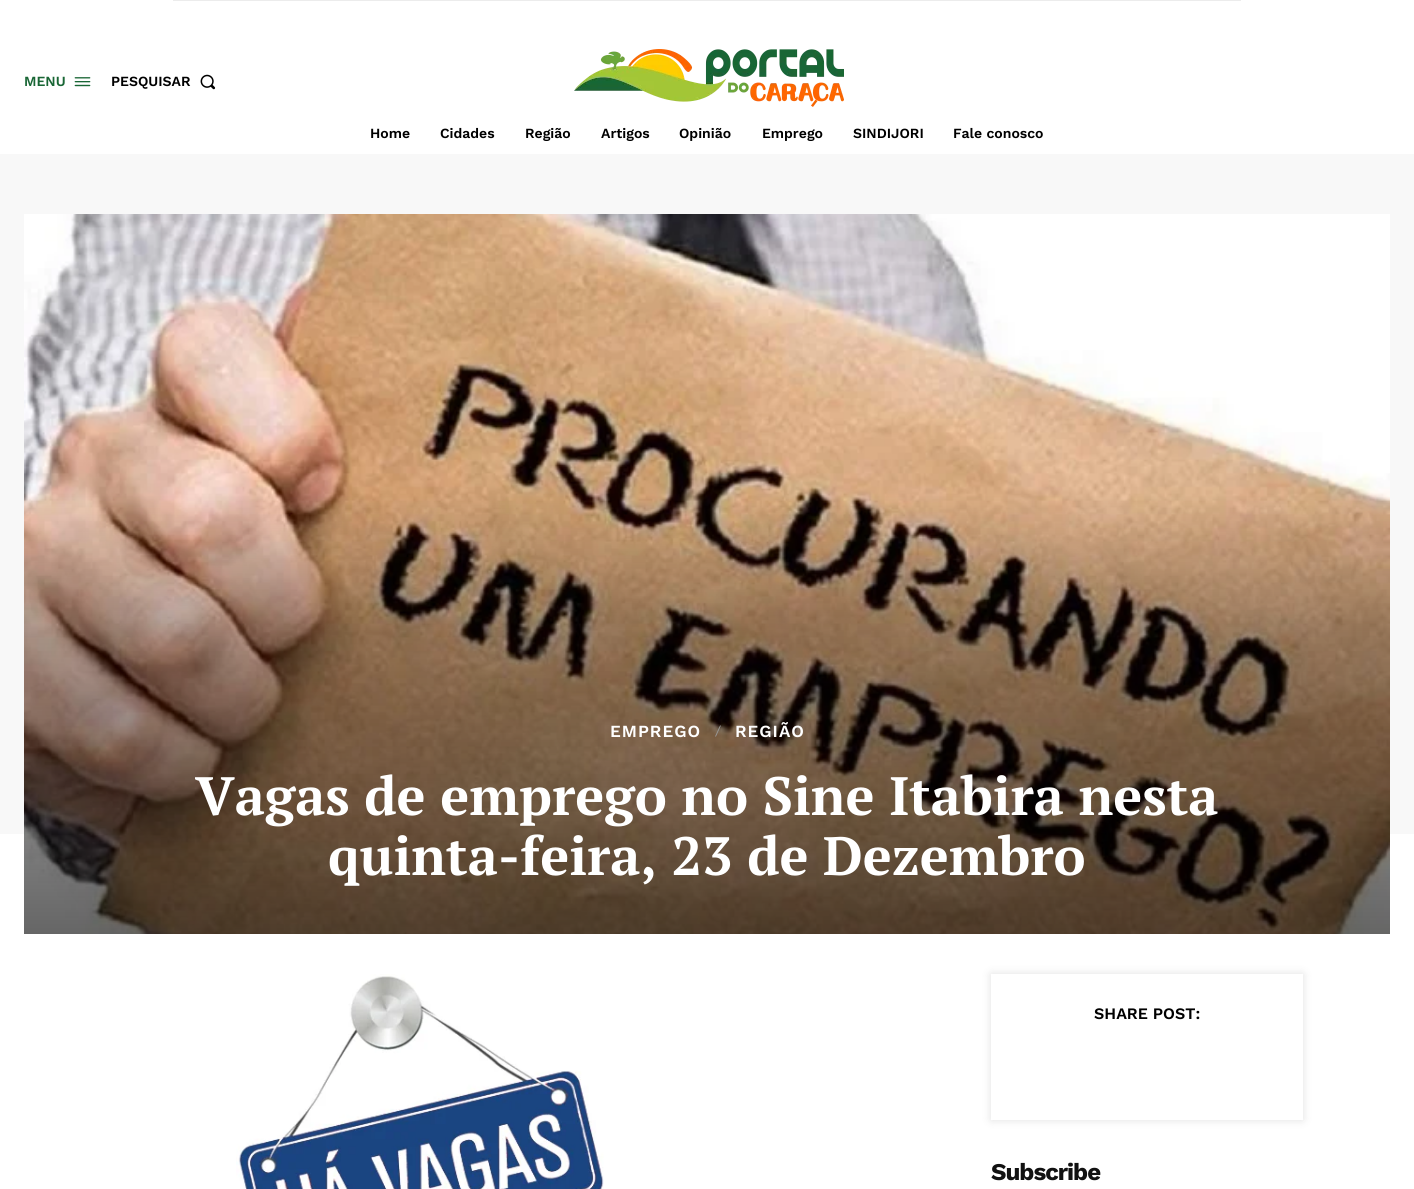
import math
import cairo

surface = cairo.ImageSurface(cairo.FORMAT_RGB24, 1414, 1189)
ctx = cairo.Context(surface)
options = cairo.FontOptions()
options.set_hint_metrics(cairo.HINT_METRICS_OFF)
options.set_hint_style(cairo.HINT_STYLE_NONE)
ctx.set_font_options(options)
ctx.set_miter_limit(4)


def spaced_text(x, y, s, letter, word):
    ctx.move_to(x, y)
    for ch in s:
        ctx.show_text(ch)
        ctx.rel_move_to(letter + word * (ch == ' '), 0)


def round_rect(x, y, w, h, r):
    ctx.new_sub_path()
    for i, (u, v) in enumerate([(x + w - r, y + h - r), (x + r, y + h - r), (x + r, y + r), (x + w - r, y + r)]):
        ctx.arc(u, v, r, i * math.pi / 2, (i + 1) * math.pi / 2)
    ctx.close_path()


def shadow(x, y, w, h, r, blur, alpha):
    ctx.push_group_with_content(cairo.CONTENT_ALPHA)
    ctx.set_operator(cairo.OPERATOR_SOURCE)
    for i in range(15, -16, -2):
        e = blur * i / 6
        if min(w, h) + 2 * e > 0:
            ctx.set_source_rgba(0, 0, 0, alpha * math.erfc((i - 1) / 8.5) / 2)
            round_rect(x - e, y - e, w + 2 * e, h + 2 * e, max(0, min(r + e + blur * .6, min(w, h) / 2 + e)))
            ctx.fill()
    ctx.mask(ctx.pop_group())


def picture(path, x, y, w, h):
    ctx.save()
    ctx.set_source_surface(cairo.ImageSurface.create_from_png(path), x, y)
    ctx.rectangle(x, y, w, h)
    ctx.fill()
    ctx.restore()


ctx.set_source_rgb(1, 1, 1)
ctx.paint()
ctx.set_source_rgb(0.922, 0.922, 0.922)
ctx.rectangle(173, 0, 1068, 1)
ctx.fill()
ctx.select_font_face("Work Sans SemiBold")
ctx.set_font_size(14)
ctx.set_source_rgb(0.098, 0.4, 0.208)
ctx.move_to(24, 86)
ctx.show_text("MENU")
picture("img1.png", 74, 77, 17, 10)
ctx.set_source_rgb(0, 0, 0)
ctx.move_to(111, 86)
ctx.show_text("PESQUISAR")
picture("img2.png", 200, 74, 16, 16)
picture("img3.png", 574, 49, 270, 58)
ctx.move_to(370, 138)
ctx.show_text("Home")
ctx.move_to(440, 138)
ctx.show_text("Cidades")
ctx.move_to(525, 138)
ctx.show_text("Região")
ctx.move_to(601, 138)
ctx.show_text("Artigos")
ctx.move_to(679, 138)
ctx.show_text("Opinião")
ctx.move_to(762, 138)
ctx.show_text("Emprego")
ctx.move_to(853, 138)
ctx.show_text("SINDIJORI")
ctx.move_to(953, 138)
ctx.show_text("Fale conosco")
ctx.set_source_rgb(0.969, 0.969, 0.969)
ctx.rectangle(0, 154, 1414, 680)
ctx.fill()
picture("img4.png", 24, 214, 1366, 720)
ctx.set_font_size(17)
ctx.set_source_rgb(1, 1, 1)
spaced_text(610, 737, "EMPREGO", 1, 0)
ctx.set_source_rgb(0.6, 0.6, 0.6)
ctx.new_path()
ctx.move_to(720, 725.5)
ctx.line_to(715, 736.5)
ctx.line_to(716, 736.5)
ctx.line_to(721, 725.5)
ctx.close_path()
ctx.fill()
ctx.set_source_rgb(1, 1, 1)
spaced_text(735, 737, "REGIÃO", 1, 0)
ctx.select_font_face("PT Serif", cairo.FONT_SLANT_NORMAL, cairo.FONT_WEIGHT_BOLD)
ctx.set_font_size(54)
ctx.move_to(195, 815)
ctx.show_text("Vagas de emprego no Sine Itabira nesta")
ctx.move_to(328, 875)
ctx.show_text("quinta-feira, 23 de Dezembro")
picture("img5.png", 236, 974, 368, 215)
ctx.save()
ctx.set_fill_rule(cairo.FILL_RULE_EVEN_ODD)
ctx.new_path()
ctx.move_to(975, 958)
ctx.line_to(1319, 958)
ctx.line_to(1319, 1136)
ctx.line_to(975, 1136)
ctx.close_path()
ctx.move_to(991, 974)
ctx.line_to(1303, 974)
ctx.line_to(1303, 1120)
ctx.line_to(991, 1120)
ctx.close_path()
ctx.clip()
ctx.set_source_rgb(0, 0, 0)
shadow(991, 974, 312, 146, 0, 5, 0.12)
ctx.restore()
ctx.select_font_face("Work Sans SemiBold")
ctx.set_font_size(16)
ctx.set_source_rgb(0, 0, 0)
ctx.move_to(1094, 1019)
ctx.show_text("SHARE POST:")
ctx.select_font_face("Work Sans", cairo.FONT_SLANT_NORMAL, cairo.FONT_WEIGHT_BOLD)
ctx.set_font_size(24)
ctx.set_source_rgb(0.067, 0.067, 0.067)
spaced_text(991, 1180, "Subscribe", -1, 0)
surface.write_to_png("page.png")
